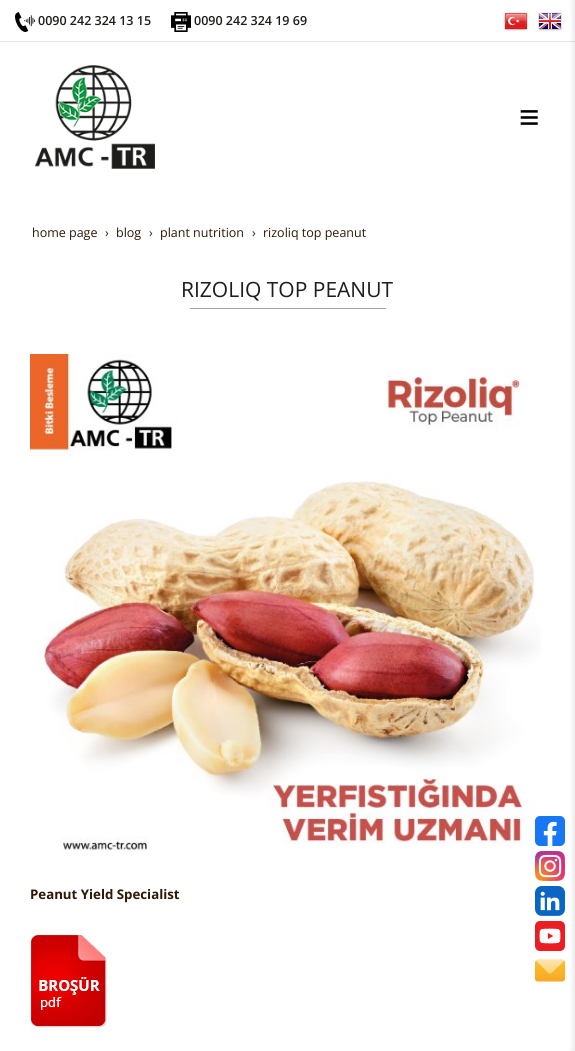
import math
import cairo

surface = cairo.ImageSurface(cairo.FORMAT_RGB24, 575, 1051)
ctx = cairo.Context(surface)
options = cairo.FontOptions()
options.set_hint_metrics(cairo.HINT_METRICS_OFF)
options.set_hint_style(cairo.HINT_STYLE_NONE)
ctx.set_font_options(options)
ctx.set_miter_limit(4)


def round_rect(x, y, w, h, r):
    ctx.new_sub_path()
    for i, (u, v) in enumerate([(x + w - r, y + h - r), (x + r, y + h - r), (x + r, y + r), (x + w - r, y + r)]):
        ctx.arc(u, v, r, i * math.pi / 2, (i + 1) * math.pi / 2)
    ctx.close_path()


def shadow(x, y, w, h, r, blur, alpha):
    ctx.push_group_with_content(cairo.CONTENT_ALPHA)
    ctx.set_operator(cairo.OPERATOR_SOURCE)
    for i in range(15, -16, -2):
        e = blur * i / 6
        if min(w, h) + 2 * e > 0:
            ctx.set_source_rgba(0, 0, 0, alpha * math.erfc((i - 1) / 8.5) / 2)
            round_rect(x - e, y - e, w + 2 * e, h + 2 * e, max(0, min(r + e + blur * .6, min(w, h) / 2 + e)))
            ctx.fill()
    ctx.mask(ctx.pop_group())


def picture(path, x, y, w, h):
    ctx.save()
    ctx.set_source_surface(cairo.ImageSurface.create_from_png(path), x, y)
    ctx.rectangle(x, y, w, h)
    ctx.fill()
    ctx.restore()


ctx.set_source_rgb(1, 1, 1)
ctx.paint()
ctx.set_source_rgb(0.902, 0.89, 0.914)
ctx.rectangle(0, 41, 575, 1)
ctx.fill()
picture("img1.png", 15, 12, 20, 20)
ctx.select_font_face("Open Sans SemiBold")
ctx.set_font_size(12.5)
ctx.set_source_rgb(0.114, 0.114, 0.106)
ctx.move_to(38, 25)
ctx.show_text("0090 242 324 13 15")
picture("img2.png", 171, 12, 20, 20)
ctx.move_to(194, 25)
ctx.show_text("0090 242 324 19 69")
picture("img3.png", 504, 12, 24, 19)
picture("img4.png", 538, 12, 24, 19)
picture("img5.png", 35, 65, 120, 104)
ctx.select_font_face("Liberation Sans")
ctx.set_font_size(35)
ctx.set_source_rgb(0, 0, 0)
ctx.move_to(519, 129)
ctx.show_text("≡")
ctx.select_font_face("Open Sans")
ctx.set_font_size(12.5)
ctx.set_source_rgb(0.18, 0.098, 0.024)
ctx.move_to(32, 237)
ctx.show_text("home page")
ctx.move_to(105, 237)
ctx.show_text("›")
ctx.move_to(116, 237)
ctx.show_text("blog")
ctx.move_to(149, 237)
ctx.show_text("›")
ctx.move_to(160, 237)
ctx.show_text("plant nutrition")
ctx.move_to(252, 237)
ctx.show_text("›")
ctx.move_to(263, 237)
ctx.show_text("rizoliq top peanut")
ctx.set_source_rgb(0.631, 0.627, 0.627)
ctx.rectangle(190, 308, 196, 1)
ctx.fill()
ctx.set_font_size(21)
ctx.set_source_rgb(0.114, 0.114, 0.106)
ctx.move_to(181, 297)
ctx.show_text("RIZOLIQ TOP PEANUT")
picture("img6.png", 30, 354, 511, 497)
ctx.select_font_face("Open Sans", cairo.FONT_SLANT_NORMAL, cairo.FONT_WEIGHT_BOLD)
ctx.set_font_size(13.25)
ctx.set_source_rgb(0.18, 0.098, 0.024)
ctx.move_to(30, 899)
ctx.show_text("Peanut Yield Specialist")
picture("img7.png", 31, 935, 76, 93)
picture("img8.png", 535, 816, 30, 30)
picture("img9.png", 535, 851, 30, 30)
picture("img10.png", 535, 886, 30, 30)
picture("img11.png", 535, 921, 30, 30)
picture("img12.png", 535, 959, 30, 23)
ctx.set_source_rgb(0, 0, 0)
shadow(573, 0, 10, 1051, 0, 2.5, 0.1)
surface.write_to_png("page.png")
